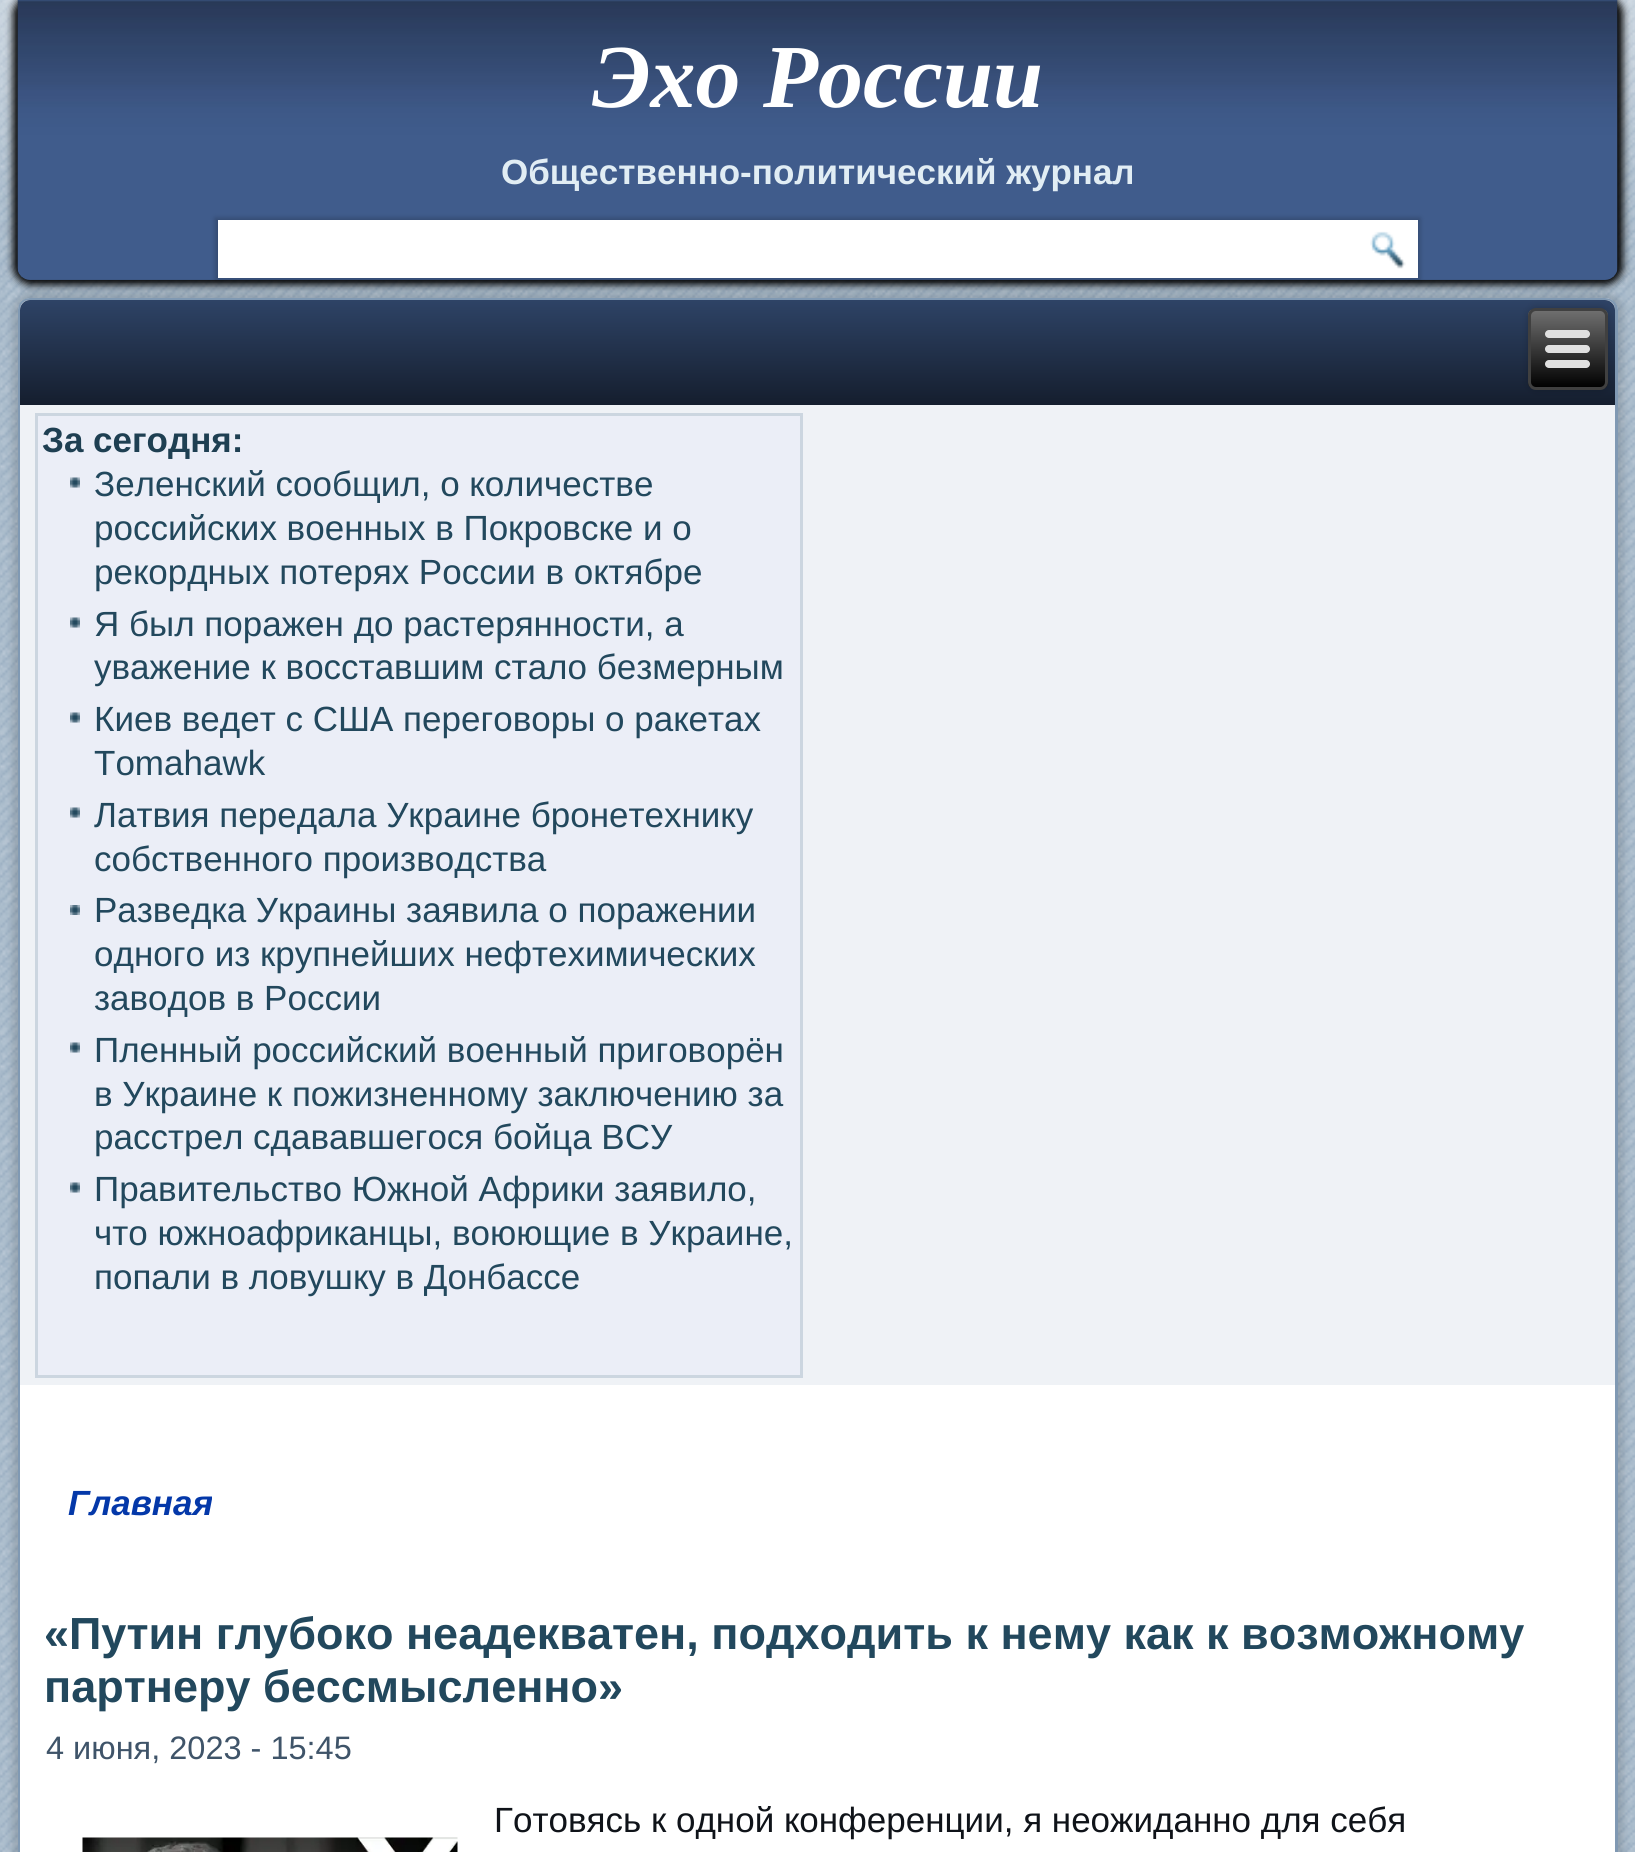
import math
import cairo

surface = cairo.ImageSurface(cairo.FORMAT_RGB24, 1635, 1852)
ctx = cairo.Context(surface)
options = cairo.FontOptions()
options.set_hint_metrics(cairo.HINT_METRICS_OFF)
options.set_hint_style(cairo.HINT_STYLE_NONE)
ctx.set_font_options(options)
ctx.set_miter_limit(4)


def round_rect(x, y, w, h, r):
    ctx.new_sub_path()
    for i, (u, v) in enumerate([(x + w - r, y + h - r), (x + r, y + h - r), (x + r, y + r), (x + w - r, y + r)]):
        ctx.arc(u, v, r, i * math.pi / 2, (i + 1) * math.pi / 2)
    ctx.close_path()


def shadow(x, y, w, h, r, blur, alpha):
    ctx.push_group_with_content(cairo.CONTENT_ALPHA)
    ctx.set_operator(cairo.OPERATOR_SOURCE)
    for i in range(15, -16, -2):
        e = blur * i / 6
        if min(w, h) + 2 * e > 0:
            ctx.set_source_rgba(0, 0, 0, alpha * math.erfc((i - 1) / 8.5) / 2)
            round_rect(x - e, y - e, w + 2 * e, h + 2 * e, max(0, min(r + e + blur * .6, min(w, h) / 2 + e)))
            ctx.fill()
    ctx.mask(ctx.pop_group())


def picture(path, x, y, w, h):
    ctx.save()
    ctx.set_source_surface(cairo.ImageSurface.create_from_png(path), x, y)
    ctx.rectangle(x, y, w, h)
    ctx.fill()
    ctx.restore()


ctx.set_source_rgb(0.698, 0.761, 0.82)
ctx.paint()
picture("img1.png", 0, 0, 1635, 1852)
ctx.set_source_rgb(0, 0, 0)
shadow(13, -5, 1610, 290, 18, 4, 1)
picture("img2.png", 17, 0, 1601, 280)
ctx.select_font_face("Liberation Serif", cairo.FONT_SLANT_ITALIC, cairo.FONT_WEIGHT_BOLD)
ctx.set_font_size(90)
ctx.set_source_rgb(1, 1, 1)
ctx.move_to(592, 107)
ctx.show_text("Эхо России")
ctx.select_font_face("Liberation Sans", cairo.FONT_SLANT_NORMAL, cairo.FONT_WEIGHT_BOLD)
ctx.set_font_size(35)
ctx.set_source_rgb(0.882, 0.929, 0.957)
ctx.move_to(501, 184)
ctx.show_text("Общественно-политический журнал")
ctx.set_source_rgb(0, 0, 0)
shadow(215, 218, 1205, 62, 0, 2.5, 0.2)
ctx.set_source_rgb(1, 1, 1)
ctx.rectangle(218, 220, 1200, 58)
ctx.fill()
picture("img3.png", 1370, 231, 36, 38)
ctx.set_source_rgb(0, 0, 0)
shadow(13, 293, 1610, 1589, 18, 4, 0.15)
ctx.set_source_rgb(1, 1, 1)
ctx.new_path()
ctx.move_to(31, 298)
ctx.line_to(1605, 298)
ctx.curve_to(1612, 298, 1618, 304, 1618, 311)
ctx.line_to(1618, 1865)
ctx.line_to(18, 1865)
ctx.line_to(18, 311)
ctx.curve_to(18, 304, 24, 298, 31, 298)
ctx.close_path()
ctx.fill()
ctx.set_source_rgb(0.502, 0.6, 0.702)
ctx.set_fill_rule(cairo.FILL_RULE_EVEN_ODD)
ctx.new_path()
ctx.move_to(30, 298)
ctx.line_to(1605, 298)
ctx.curve_to(1612, 298, 1618, 303, 1618, 310)
ctx.line_to(1618, 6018)
ctx.line_to(18, 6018)
ctx.line_to(18, 310)
ctx.curve_to(18, 303, 23, 298, 30, 298)
ctx.close_path()
ctx.move_to(30, 300)
ctx.line_to(1605, 300)
ctx.curve_to(1611, 300, 1615, 304, 1615, 310)
ctx.line_to(1615, 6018)
ctx.line_to(20, 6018)
ctx.line_to(20, 310)
ctx.curve_to(20, 304, 24, 300, 30, 300)
ctx.close_path()
ctx.fill()
gradient = cairo.LinearGradient(818, 300, 818, 405)
gradient.add_color_stop_rgba(0, 0.18, 0.263, 0.4, 1)
gradient.add_color_stop_rgba(1, 0.082, 0.118, 0.18, 1)
ctx.set_source(gradient)
ctx.new_path()
ctx.move_to(30, 300)
ctx.line_to(1605, 300)
ctx.curve_to(1610.5, 300, 1615, 304.5, 1615, 310)
ctx.line_to(1615, 405)
ctx.line_to(20, 405)
ctx.line_to(20, 310)
ctx.curve_to(20, 304.5, 24.5, 300, 30, 300)
ctx.close_path()
ctx.fill()
ctx.set_source_rgb(0, 0, 0)
shadow(1528, 308, 80, 82, 8, 4, 0.2)
ctx.save()
ctx.set_fill_rule(cairo.FILL_RULE_WINDING)
round_rect(1528, 308, 80, 82, 8)
ctx.clip()
gradient = cairo.LinearGradient(1568, 310, 1568, 388)
gradient.add_color_stop_rgba(0, 0.439, 0.439, 0.439, 1)
gradient.add_color_stop_rgba(1, 0, 0, 0, 1)
ctx.set_source(gradient)
ctx.rectangle(1528, 310, 80, 78)
ctx.fill()
ctx.restore()
round_rect(1529.5, 309.5, 77, 79, 6.5)
ctx.set_source_rgb(0.251, 0.251, 0.251)
ctx.set_line_width(3)
ctx.stroke()
ctx.set_source_rgb(0.878, 0.878, 0.878)
round_rect(1545, 330, 45, 8, 4)
ctx.fill()
round_rect(1545, 345, 45, 8, 4)
ctx.fill()
round_rect(1545, 360, 45, 8, 4)
ctx.fill()
ctx.set_source_rgb(0.937, 0.949, 0.961)
ctx.rectangle(20, 405, 1595, 980)
ctx.fill()
ctx.set_source_rgb(0.918, 0.933, 0.965)
ctx.rectangle(36.5, 414.5, 765, 962)
ctx.fill_preserve()
ctx.set_source_rgb(0.8, 0.839, 0.878)
ctx.stroke()
ctx.set_source_rgb(0.118, 0.247, 0.322)
ctx.move_to(42, 452)
ctx.show_text("За сегодня:")
picture("img4.png", 70, 477, 10, 11)
ctx.select_font_face("Liberation Sans")
ctx.set_source_rgb(0.133, 0.282, 0.365)
ctx.move_to(94, 496)
ctx.show_text("Зеленский сообщил, о количестве")
ctx.move_to(94, 540)
ctx.show_text("российских военных в Покровске и о")
ctx.move_to(94, 584)
ctx.show_text("рекордных потерях России в октябре")
picture("img4.png", 70, 617, 10, 11)
ctx.move_to(94, 636)
ctx.show_text("Я был поражен до растерянности, а")
ctx.move_to(94, 679)
ctx.show_text("уважение к восставшим стало безмерным")
picture("img4.png", 70, 712, 10, 11)
ctx.move_to(94, 731)
ctx.show_text("Киев ведет с США переговоры о ракетах")
ctx.move_to(94, 775)
ctx.show_text("Tomahawk")
picture("img4.png", 70, 807, 10, 11)
ctx.move_to(94, 827)
ctx.show_text("Латвия передала Украине бронетехнику")
ctx.move_to(94, 871)
ctx.show_text("собственного производства")
picture("img5.png", 70, 905, 10, 10)
ctx.move_to(94, 922)
ctx.show_text("Разведка Украины заявила о поражении")
ctx.move_to(94, 966)
ctx.show_text("одного из крупнейших нефтехимических")
ctx.move_to(94, 1010)
ctx.show_text("заводов в России")
picture("img4.png", 70, 1042, 10, 11)
ctx.move_to(94, 1062)
ctx.show_text("Пленный российский военный приговорён")
ctx.move_to(94, 1106)
ctx.show_text("в Украине к пожизненному заключению за")
ctx.move_to(94, 1149)
ctx.show_text("расстрел сдававшегося бойца ВСУ")
picture("img4.png", 70, 1182, 10, 11)
ctx.move_to(94, 1201)
ctx.show_text("Правительство Южной Африки заявило,")
ctx.move_to(94, 1245)
ctx.show_text("что южноафриканцы, воюющие в Украине,")
ctx.move_to(94, 1289)
ctx.show_text("попали в ловушку в Донбассе")
ctx.select_font_face("Liberation Sans", cairo.FONT_SLANT_ITALIC, cairo.FONT_WEIGHT_BOLD)
ctx.set_source_rgb(0.016, 0.22, 0.663)
ctx.move_to(68, 1515)
ctx.show_text("Главная")
ctx.select_font_face("Liberation Sans", cairo.FONT_SLANT_NORMAL, cairo.FONT_WEIGHT_BOLD)
ctx.set_font_size(45)
ctx.set_source_rgb(0.133, 0.282, 0.365)
ctx.move_to(44, 1649)
ctx.show_text("«Путин глубоко неадекватен, подходить к нему как к возможному")
ctx.move_to(44, 1702)
ctx.show_text("партнеру бессмысленно»")
ctx.select_font_face("Liberation Sans")
ctx.set_font_size(32.5)
ctx.set_source_rgb(0.247, 0.329, 0.412)
ctx.move_to(46, 1759)
ctx.show_text("4 июня, 2023 - 15:45")
ctx.set_font_size(35)
ctx.set_source_rgb(0.059, 0.078, 0.098)
ctx.move_to(494, 1832)
ctx.show_text("Готовясь к одной конференции, я неожиданно для себя")
picture("img6.png", 82, 1837, 376, 15)
surface.write_to_png("page.png")
